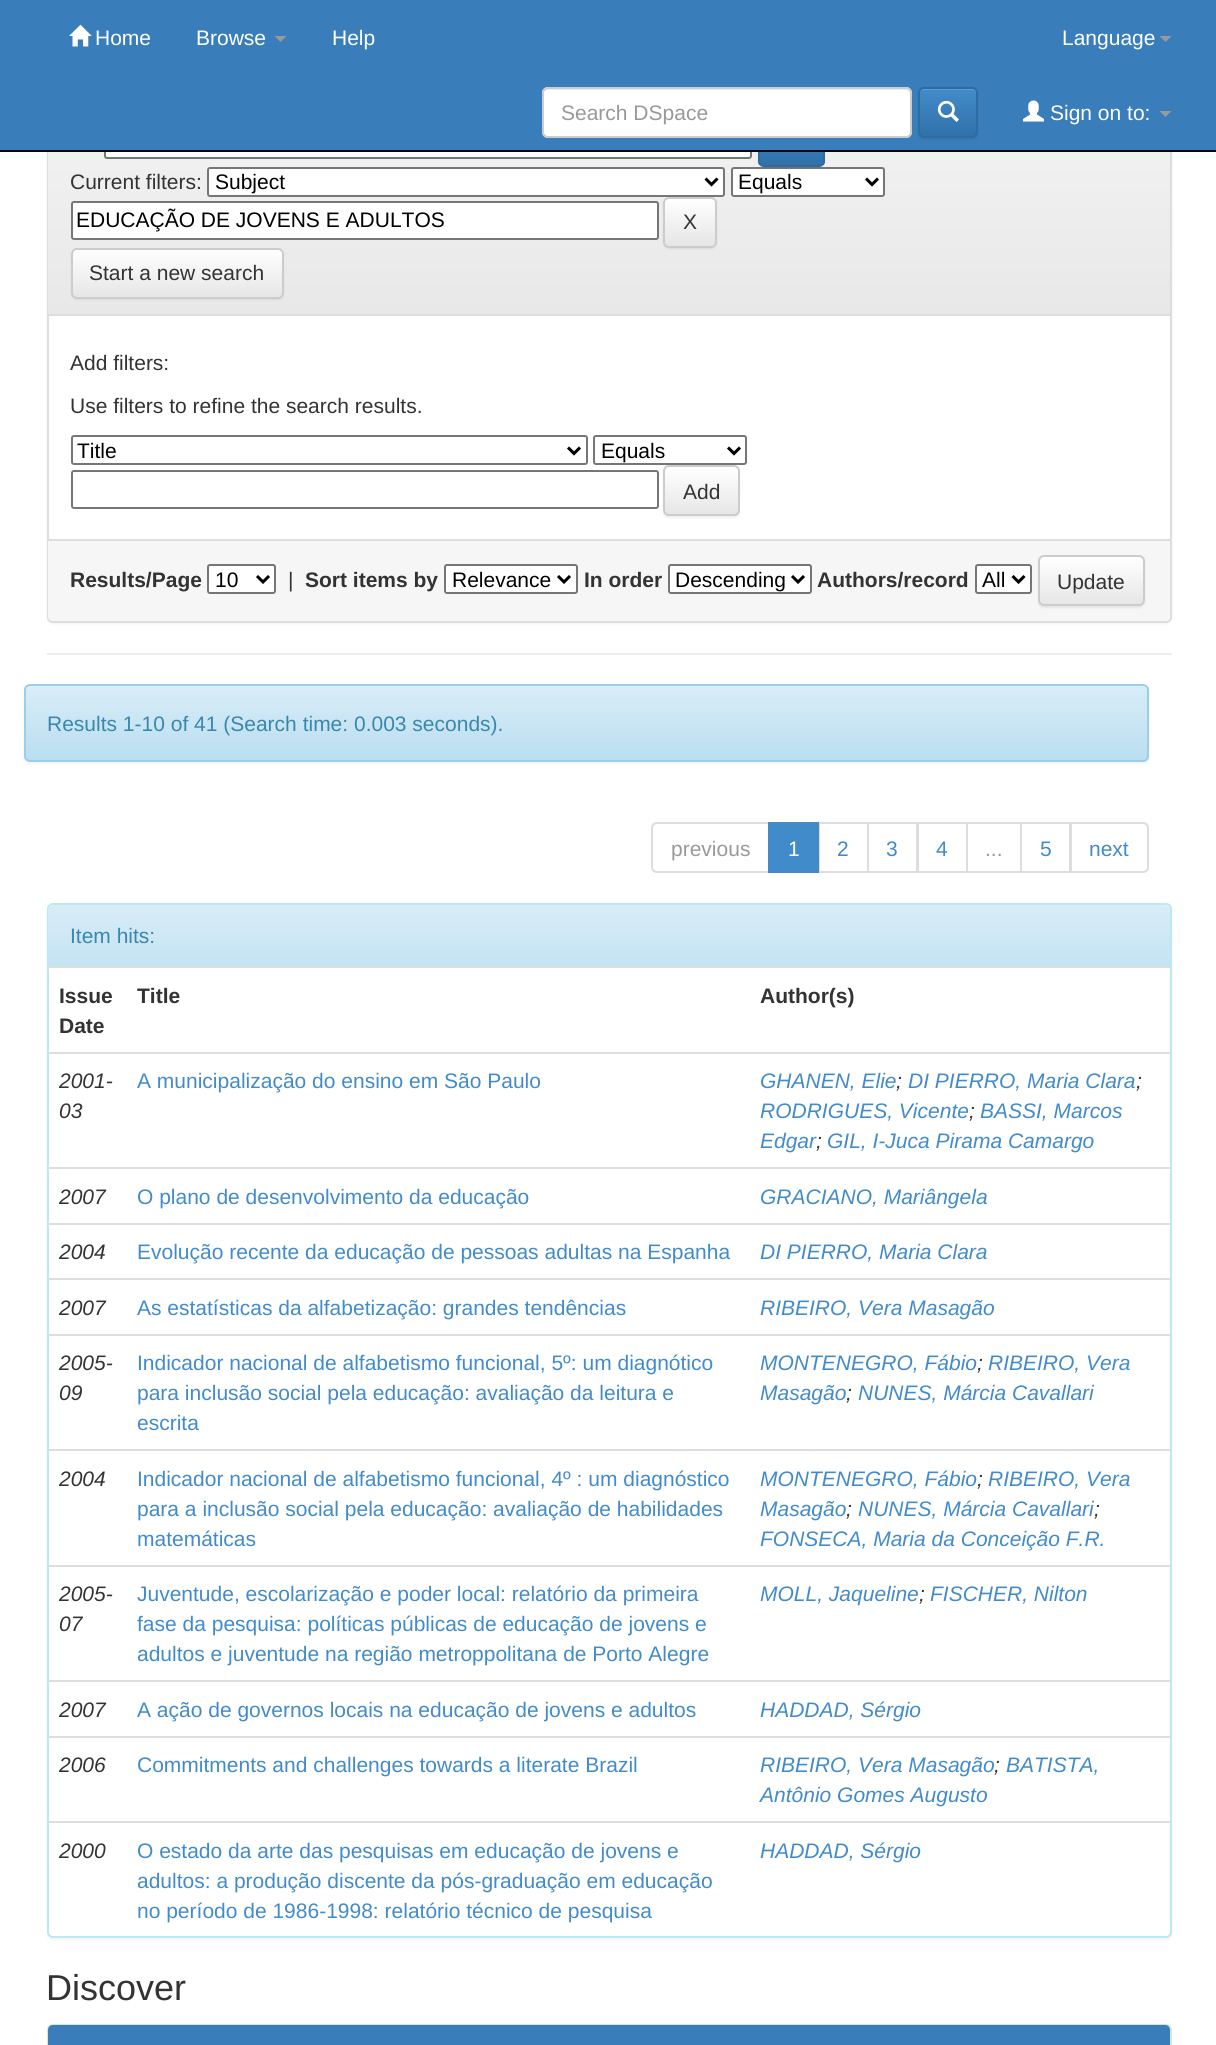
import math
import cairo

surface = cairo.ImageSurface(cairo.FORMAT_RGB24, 1216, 2045)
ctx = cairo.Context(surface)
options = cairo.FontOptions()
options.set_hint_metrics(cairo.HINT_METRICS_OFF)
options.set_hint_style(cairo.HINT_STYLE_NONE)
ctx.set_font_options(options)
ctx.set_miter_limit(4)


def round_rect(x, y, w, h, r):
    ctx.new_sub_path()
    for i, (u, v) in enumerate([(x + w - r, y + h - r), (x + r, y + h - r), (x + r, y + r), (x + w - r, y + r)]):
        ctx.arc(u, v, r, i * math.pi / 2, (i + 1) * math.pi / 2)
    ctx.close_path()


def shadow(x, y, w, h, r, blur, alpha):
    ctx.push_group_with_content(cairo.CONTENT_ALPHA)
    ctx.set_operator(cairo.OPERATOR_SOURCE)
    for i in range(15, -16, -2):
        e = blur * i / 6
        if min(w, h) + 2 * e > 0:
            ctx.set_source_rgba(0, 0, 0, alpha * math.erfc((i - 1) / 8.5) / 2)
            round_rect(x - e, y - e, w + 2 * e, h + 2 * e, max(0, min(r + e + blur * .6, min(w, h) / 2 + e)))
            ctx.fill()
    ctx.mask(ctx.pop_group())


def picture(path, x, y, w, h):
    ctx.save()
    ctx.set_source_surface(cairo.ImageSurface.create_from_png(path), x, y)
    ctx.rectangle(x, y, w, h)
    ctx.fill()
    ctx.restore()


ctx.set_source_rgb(1, 1, 1)
ctx.paint()
ctx.set_source_rgb(0, 0, 0)
shadow(47, 63, 1125, 561, 6, 1.5, 0.05)
ctx.set_source_rgb(1, 1, 1)
round_rect(48, 63, 1123, 559, 5)
ctx.fill_preserve()
ctx.set_source_rgb(0.867, 0.867, 0.867)
ctx.stroke()
gradient = cairo.LinearGradient(609, 63, 609, 314)
gradient.add_color_stop_rgba(0, 0.961, 0.961, 0.961, 1)
gradient.add_color_stop_rgba(1, 0.91, 0.91, 0.91, 1)
ctx.set_source(gradient)
ctx.rectangle(48, 152, 1122, 162)
ctx.fill()
ctx.set_source_rgb(1, 1, 1)
round_rect(105, 121, 646, 37, 2)
ctx.fill_preserve()
ctx.set_source_rgb(0.463, 0.463, 0.463)
ctx.stroke()
ctx.set_source_rgb(1, 1, 1)
round_rect(732, 168, 152, 28, 2)
ctx.fill_preserve()
ctx.set_source_rgb(0.463, 0.463, 0.463)
ctx.stroke()
ctx.set_source_rgb(0, 0, 0)
shadow(758, 117, 67, 51, 6, 1, 0.07)
ctx.save()
round_rect(758, 116, 67, 51, 6)
ctx.clip()
gradient = cairo.LinearGradient(791, 117, 791, 165)
gradient.add_color_stop_rgba(0, 0.259, 0.545, 0.792, 1)
gradient.add_color_stop_rgba(1, 0.188, 0.443, 0.663, 1)
ctx.set_source(gradient)
ctx.rectangle(758, 152, 67, 13)
ctx.fill()
ctx.restore()
round_rect(759, 117, 65, 49, 5)
ctx.set_source_rgb(0.176, 0.424, 0.635)
ctx.stroke()
ctx.set_source_rgb(0.224, 0.494, 0.729)
ctx.rectangle(0, 0, 1216, 150)
ctx.fill()
ctx.set_source_rgb(0.031, 0.031, 0.031)
ctx.rectangle(0, 150, 1216, 2)
ctx.fill()
picture("img1.png", 69, 24, 23, 23)
ctx.select_font_face("Liberation Sans")
ctx.set_font_size(21)
ctx.set_source_rgb(1, 1, 1)
ctx.move_to(95, 45)
ctx.show_text("Home")
ctx.move_to(196, 45)
ctx.show_text("Browse")
ctx.set_source_rgb(0.6, 0.6, 0.6)
ctx.new_path()
ctx.move_to(274.5, 36)
ctx.line_to(286.5, 36)
ctx.line_to(280.5, 42)
ctx.close_path()
ctx.fill()
ctx.set_source_rgb(1, 1, 1)
ctx.move_to(332, 45)
ctx.show_text("Help")
ctx.move_to(1062, 45)
ctx.show_text("Language")
ctx.set_source_rgb(0.6, 0.6, 0.6)
ctx.new_path()
ctx.move_to(1159.5, 36)
ctx.line_to(1171.5, 36)
ctx.line_to(1165.5, 42)
ctx.close_path()
ctx.fill()
ctx.set_source_rgb(1, 1, 1)
round_rect(542, 87, 370, 51, 6)
ctx.fill()
ctx.set_source_rgb(0.925, 0.925, 0.925)
ctx.new_path()
ctx.move_to(548, 90)
ctx.line_to(906, 90)
ctx.curve_to(908, 90, 910, 92, 910, 94)
ctx.line_to(910, 135)
ctx.curve_to(911, 134, 911, 133, 911, 132)
ctx.line_to(911, 94)
ctx.curve_to(911, 91, 909, 89, 906, 89)
ctx.line_to(548, 89)
ctx.curve_to(545, 89, 543, 91, 543, 94)
ctx.curve_to(543, 92, 545, 90, 548, 90)
ctx.close_path()
ctx.fill()
round_rect(543, 88, 368, 49, 5)
ctx.set_source_rgb(0.8, 0.8, 0.8)
ctx.stroke()
ctx.set_source_rgb(0.6, 0.6, 0.6)
ctx.move_to(561, 120)
ctx.show_text("Search DSpace")
ctx.set_source_rgb(0, 0, 0)
shadow(918, 89, 60, 51, 6, 1, 0.07)
ctx.save()
round_rect(918, 87, 60, 51, 6)
ctx.clip()
gradient = cairo.LinearGradient(948, 89, 948, 137)
gradient.add_color_stop_rgba(0, 0.259, 0.545, 0.792, 1)
gradient.add_color_stop_rgba(1, 0.188, 0.443, 0.663, 1)
ctx.set_source(gradient)
ctx.rectangle(918, 89, 60, 48)
ctx.fill()
ctx.restore()
ctx.set_source_rgba(1, 1, 1, 0.15)
ctx.new_path()
ctx.move_to(924, 90)
ctx.line_to(973, 90)
ctx.curve_to(977, 91, 976, 98, 976, 101)
ctx.line_to(976, 135)
ctx.curve_to(977, 134, 977, 133, 977, 132)
ctx.line_to(977, 94)
ctx.curve_to(977, 91, 975, 89, 972, 89)
ctx.line_to(925, 89)
ctx.curve_to(922, 89, 920, 91, 920, 94)
ctx.curve_to(920, 92, 922, 90, 924, 90)
ctx.close_path()
ctx.fill()
round_rect(919, 88, 58, 49, 5)
ctx.set_source_rgb(0.176, 0.424, 0.635)
ctx.stroke()
picture("img2.png", 937, 100, 22, 22)
picture("img3.png", 1023, 100, 21, 22)
ctx.set_source_rgb(1, 1, 1)
ctx.move_to(1050, 120)
ctx.show_text("Sign on to:")
ctx.set_source_rgb(0.6, 0.6, 0.6)
ctx.new_path()
ctx.move_to(1159.5, 111)
ctx.line_to(1171.5, 111)
ctx.line_to(1165.5, 117)
ctx.close_path()
ctx.fill()
ctx.set_source_rgb(0.867, 0.867, 0.867)
ctx.rectangle(48, 314, 1122, 2)
ctx.fill()
ctx.set_source_rgb(0.2, 0.2, 0.2)
ctx.move_to(70, 189)
ctx.show_text("Current filters:")
ctx.set_source_rgb(1, 1, 1)
round_rect(208, 168, 516, 28, 2)
ctx.fill_preserve()
ctx.set_source_rgb(0.463, 0.463, 0.463)
ctx.stroke()
ctx.new_path()
ctx.move_to(705.5, 178.5)
ctx.line_to(711.5, 184.5)
ctx.line_to(717.5, 178.5)
ctx.set_source_rgb(0, 0, 0)
ctx.set_line_width(3)
ctx.stroke()
ctx.move_to(215, 189)
ctx.show_text("Subject")
ctx.new_path()
ctx.move_to(866, 178.5)
ctx.line_to(872, 184.5)
ctx.line_to(878, 178.5)
ctx.stroke()
ctx.move_to(738, 189)
ctx.show_text("Equals")
ctx.set_source_rgb(1, 1, 1)
round_rect(72, 202, 586, 37, 2)
ctx.fill_preserve()
ctx.set_source_rgb(0.463, 0.463, 0.463)
ctx.set_line_width(2)
ctx.stroke()
ctx.set_source_rgb(0, 0, 0)
ctx.move_to(76, 227)
ctx.show_text("EDUCAÇÃO DE JOVENS E ADULTOS")
ctx.set_source_rgb(0, 0, 0)
shadow(663, 198, 54, 51, 6, 1, 0.07)
ctx.save()
round_rect(663, 197, 54, 51, 6)
ctx.clip()
gradient = cairo.LinearGradient(690, 198, 690, 246)
gradient.add_color_stop_rgba(0, 1, 1, 1, 1)
gradient.add_color_stop_rgba(1, 0.902, 0.902, 0.902, 1)
ctx.set_source(gradient)
ctx.rectangle(663, 198, 54, 48)
ctx.fill()
ctx.restore()
round_rect(664, 198, 52, 49, 5)
ctx.set_source_rgb(0.8, 0.8, 0.8)
ctx.stroke()
ctx.set_source_rgb(0.2, 0.2, 0.2)
ctx.move_to(683, 229)
ctx.show_text("X")
ctx.set_source_rgb(0, 0, 0)
shadow(71, 249, 213, 51, 6, 1, 0.07)
ctx.save()
round_rect(71, 248, 213, 51, 6)
ctx.clip()
gradient = cairo.LinearGradient(177, 249, 177, 297)
gradient.add_color_stop_rgba(0, 1, 1, 1, 1)
gradient.add_color_stop_rgba(1, 0.902, 0.902, 0.902, 1)
ctx.set_source(gradient)
ctx.rectangle(71, 249, 213, 48)
ctx.fill()
ctx.restore()
round_rect(72, 249, 211, 49, 5)
ctx.set_source_rgb(0.8, 0.8, 0.8)
ctx.stroke()
ctx.set_source_rgb(0.2, 0.2, 0.2)
ctx.move_to(89, 280)
ctx.show_text("Start a new search")
ctx.move_to(70, 370)
ctx.show_text("Add filters:")
ctx.move_to(70, 413)
ctx.show_text("Use filters to refine the search results.")
round_rect(72, 436, 515, 28, 2)
ctx.set_source_rgb(0.463, 0.463, 0.463)
ctx.stroke()
ctx.new_path()
ctx.move_to(568, 447.5)
ctx.line_to(574, 453.5)
ctx.line_to(580, 447.5)
ctx.set_source_rgb(0, 0, 0)
ctx.set_line_width(3)
ctx.stroke()
ctx.move_to(77, 458)
ctx.show_text("Title")
round_rect(594, 436, 152, 28, 2)
ctx.set_source_rgb(0.463, 0.463, 0.463)
ctx.set_line_width(2)
ctx.stroke()
ctx.new_path()
ctx.move_to(728, 447.5)
ctx.line_to(734, 453.5)
ctx.line_to(740, 447.5)
ctx.set_source_rgb(0, 0, 0)
ctx.set_line_width(3)
ctx.stroke()
ctx.move_to(601, 458)
ctx.show_text("Equals")
round_rect(72, 471, 586, 37, 2)
ctx.set_source_rgb(0.463, 0.463, 0.463)
ctx.set_line_width(2)
ctx.stroke()
ctx.set_source_rgb(0, 0, 0)
shadow(663, 467, 77, 51, 6, 1, 0.07)
ctx.save()
round_rect(663, 465, 77, 51, 6)
ctx.clip()
gradient = cairo.LinearGradient(701, 467, 701, 515)
gradient.add_color_stop_rgba(0, 1, 1, 1, 1)
gradient.add_color_stop_rgba(1, 0.902, 0.902, 0.902, 1)
ctx.set_source(gradient)
ctx.rectangle(663, 467, 77, 48)
ctx.fill()
ctx.restore()
round_rect(664, 466, 75, 49, 5)
ctx.set_source_rgb(0.8, 0.8, 0.8)
ctx.stroke()
ctx.set_source_rgb(0.2, 0.2, 0.2)
ctx.move_to(683, 499)
ctx.show_text("Add")
ctx.set_source_rgb(0.961, 0.961, 0.961)
ctx.new_path()
ctx.move_to(48, 539)
ctx.line_to(1170, 539)
ctx.line_to(1170, 616)
ctx.curve_to(1170, 619, 1168, 621, 1165, 621)
ctx.line_to(53, 621)
ctx.curve_to(50, 621, 48, 619, 48, 616)
ctx.close_path()
ctx.fill()
ctx.set_source_rgb(0.867, 0.867, 0.867)
ctx.rectangle(48, 539, 1122, 2)
ctx.fill()
ctx.select_font_face("Liberation Sans", cairo.FONT_SLANT_NORMAL, cairo.FONT_WEIGHT_BOLD)
ctx.set_source_rgb(0.2, 0.2, 0.2)
ctx.move_to(70, 587)
ctx.show_text("Results/Page")
ctx.set_source_rgb(1, 1, 1)
round_rect(208, 565, 67, 28, 2)
ctx.fill_preserve()
ctx.set_source_rgb(0.463, 0.463, 0.463)
ctx.stroke()
ctx.new_path()
ctx.move_to(257, 576)
ctx.line_to(263, 582)
ctx.line_to(269, 576)
ctx.set_source_rgb(0, 0, 0)
ctx.set_line_width(3)
ctx.stroke()
ctx.select_font_face("Liberation Sans")
ctx.move_to(215, 587)
ctx.show_text("10")
ctx.set_source_rgb(0.2, 0.2, 0.2)
ctx.move_to(288, 587)
ctx.show_text("|")
ctx.select_font_face("Liberation Sans", cairo.FONT_SLANT_NORMAL, cairo.FONT_WEIGHT_BOLD)
ctx.move_to(305, 587)
ctx.show_text("Sort items by")
ctx.set_source_rgb(1, 1, 1)
round_rect(445, 565, 132, 28, 2)
ctx.fill_preserve()
ctx.set_source_rgb(0.463, 0.463, 0.463)
ctx.set_line_width(2)
ctx.stroke()
ctx.new_path()
ctx.move_to(558, 576)
ctx.line_to(564, 582)
ctx.line_to(570, 576)
ctx.set_source_rgb(0, 0, 0)
ctx.set_line_width(3)
ctx.stroke()
ctx.select_font_face("Liberation Sans")
ctx.move_to(452, 587)
ctx.show_text("Relevance")
ctx.select_font_face("Liberation Sans", cairo.FONT_SLANT_NORMAL, cairo.FONT_WEIGHT_BOLD)
ctx.set_source_rgb(0.2, 0.2, 0.2)
ctx.move_to(584, 587)
ctx.show_text("In order")
ctx.set_source_rgb(1, 1, 1)
round_rect(669, 565, 142, 28, 2)
ctx.fill_preserve()
ctx.set_source_rgb(0.463, 0.463, 0.463)
ctx.set_line_width(2)
ctx.stroke()
ctx.new_path()
ctx.move_to(792, 576)
ctx.line_to(798, 582)
ctx.line_to(804, 576)
ctx.set_source_rgb(0, 0, 0)
ctx.set_line_width(3)
ctx.stroke()
ctx.select_font_face("Liberation Sans")
ctx.move_to(675, 587)
ctx.show_text("Descending")
ctx.select_font_face("Liberation Sans", cairo.FONT_SLANT_NORMAL, cairo.FONT_WEIGHT_BOLD)
ctx.set_source_rgb(0.2, 0.2, 0.2)
ctx.move_to(817, 587)
ctx.show_text("Authors/record")
ctx.set_source_rgb(1, 1, 1)
round_rect(976, 565, 55, 28, 2)
ctx.fill_preserve()
ctx.set_source_rgb(0.463, 0.463, 0.463)
ctx.set_line_width(2)
ctx.stroke()
ctx.new_path()
ctx.move_to(1012.5, 576)
ctx.line_to(1018.5, 582)
ctx.line_to(1024.5, 576)
ctx.set_source_rgb(0, 0, 0)
ctx.set_line_width(3)
ctx.stroke()
ctx.select_font_face("Liberation Sans")
ctx.move_to(982, 587)
ctx.show_text("All")
ctx.set_source_rgb(0, 0, 0)
shadow(1038, 557, 107, 51, 6, 1, 0.07)
ctx.save()
round_rect(1038, 555, 107, 51, 6)
ctx.clip()
gradient = cairo.LinearGradient(1091, 557, 1091, 605)
gradient.add_color_stop_rgba(0, 1, 1, 1, 1)
gradient.add_color_stop_rgba(1, 0.902, 0.902, 0.902, 1)
ctx.set_source(gradient)
ctx.rectangle(1038, 557, 107, 48)
ctx.fill()
ctx.restore()
round_rect(1039, 556, 105, 49, 5)
ctx.set_source_rgb(0.8, 0.8, 0.8)
ctx.set_line_width(2)
ctx.stroke()
ctx.set_source_rgb(0.2, 0.2, 0.2)
ctx.move_to(1057, 589)
ctx.show_text("Update")
ctx.set_source_rgb(0.933, 0.933, 0.933)
ctx.rectangle(47, 653, 1125, 2)
ctx.fill()
ctx.set_source_rgb(0, 0, 0)
shadow(24, 686, 1125, 78, 6, 1.5, 0.05)
ctx.save()
round_rect(24, 684, 1125, 78, 6)
ctx.clip()
gradient = cairo.LinearGradient(587, 685, 587, 761)
gradient.add_color_stop_rgba(0, 0.851, 0.929, 0.969, 1)
gradient.add_color_stop_rgba(1, 0.725, 0.871, 0.941, 1)
ctx.set_source(gradient)
ctx.rectangle(24, 686, 1125, 75)
ctx.fill()
ctx.restore()
ctx.set_source_rgb(0.886, 0.945, 0.976)
ctx.new_path()
ctx.move_to(30, 687)
ctx.line_to(1143, 687)
ctx.curve_to(1145, 687, 1148, 689, 1148, 692)
ctx.curve_to(1148, 689, 1146, 686, 1143, 686)
ctx.line_to(31, 686)
ctx.curve_to(28, 686, 26, 689, 26, 692)
ctx.curve_to(26, 689, 28, 687, 30, 687)
ctx.close_path()
ctx.fill()
round_rect(25, 685, 1123, 76, 5)
ctx.set_source_rgb(0.604, 0.812, 0.918)
ctx.stroke()
ctx.set_source_rgb(0.227, 0.529, 0.678)
ctx.move_to(47, 731)
ctx.show_text("Results 1-10 of 41 (Search time: 0.003 seconds).")
ctx.new_path()
ctx.move_to(657, 823)
ctx.line_to(769, 823)
ctx.line_to(769, 872)
ctx.line_to(657, 872)
ctx.curve_to(654, 872, 652, 870, 652, 867)
ctx.line_to(652, 828)
ctx.curve_to(652, 825, 654, 823, 657, 823)
ctx.close_path()
ctx.set_source_rgb(0.867, 0.867, 0.867)
ctx.stroke()
ctx.set_source_rgb(0.6, 0.6, 0.6)
ctx.move_to(671, 856)
ctx.show_text("previous")
ctx.rectangle(819, 823, 49, 49)
ctx.set_source_rgb(0.867, 0.867, 0.867)
ctx.stroke()
ctx.set_source_rgb(0.259, 0.545, 0.792)
ctx.rectangle(768, 822, 51, 51)
ctx.fill()
ctx.set_source_rgb(1, 1, 1)
ctx.move_to(788, 856)
ctx.show_text("1")
ctx.set_source_rgb(0.259, 0.545, 0.792)
ctx.move_to(837, 856)
ctx.show_text("2")
ctx.rectangle(868, 823, 49, 49)
ctx.set_source_rgb(0.867, 0.867, 0.867)
ctx.stroke()
ctx.set_source_rgb(0.259, 0.545, 0.792)
ctx.move_to(886, 856)
ctx.show_text("3")
ctx.rectangle(918, 823, 49, 49)
ctx.set_source_rgb(0.867, 0.867, 0.867)
ctx.stroke()
ctx.set_source_rgb(0.259, 0.545, 0.792)
ctx.move_to(936, 856)
ctx.show_text("4")
ctx.rectangle(967, 823, 54, 49)
ctx.set_source_rgb(0.867, 0.867, 0.867)
ctx.stroke()
ctx.set_source_rgb(0.6, 0.6, 0.6)
ctx.move_to(985, 856)
ctx.show_text("...")
ctx.rectangle(1021, 823, 49, 49)
ctx.set_source_rgb(0.867, 0.867, 0.867)
ctx.stroke()
ctx.set_source_rgb(0.259, 0.545, 0.792)
ctx.move_to(1040, 856)
ctx.show_text("5")
ctx.set_source_rgb(1, 1, 1)
ctx.new_path()
ctx.move_to(1071, 823)
ctx.line_to(1143, 823)
ctx.curve_to(1146, 823, 1148, 825, 1148, 828)
ctx.line_to(1148, 867)
ctx.curve_to(1148, 870, 1146, 872, 1143, 872)
ctx.line_to(1071, 872)
ctx.close_path()
ctx.fill_preserve()
ctx.set_source_rgb(0.867, 0.867, 0.867)
ctx.stroke()
ctx.set_source_rgb(0.259, 0.545, 0.792)
ctx.move_to(1089, 856)
ctx.show_text("next")
ctx.set_source_rgb(0, 0, 0)
shadow(47, 905, 1125, 1035, 6, 1.5, 0.05)
ctx.set_source_rgb(1, 1, 1)
round_rect(48, 904, 1123, 1033, 5)
ctx.fill_preserve()
ctx.set_source_rgb(0.737, 0.91, 0.945)
ctx.stroke()
gradient = cairo.LinearGradient(609, 905, 609, 965)
gradient.add_color_stop_rgba(0, 0.851, 0.929, 0.969, 1)
gradient.add_color_stop_rgba(1, 0.769, 0.89, 0.953, 1)
ctx.set_source(gradient)
ctx.new_path()
ctx.move_to(53, 905)
ctx.line_to(1165, 905)
ctx.curve_to(1168, 905, 1170, 907, 1170, 910)
ctx.line_to(1170, 965)
ctx.line_to(48, 965)
ctx.line_to(48, 910)
ctx.curve_to(48, 907, 50, 905, 53, 905)
ctx.close_path()
ctx.fill()
ctx.set_source_rgb(0.737, 0.91, 0.945)
ctx.rectangle(48, 965, 1122, 1)
ctx.fill()
ctx.set_source_rgb(0.227, 0.529, 0.678)
ctx.move_to(70, 943)
ctx.show_text("Item hits:")
ctx.select_font_face("Liberation Sans", cairo.FONT_SLANT_NORMAL, cairo.FONT_WEIGHT_BOLD)
ctx.set_source_rgb(0.2, 0.2, 0.2)
ctx.move_to(59, 1003)
ctx.show_text("Issue")
ctx.move_to(59, 1033)
ctx.show_text("Date")
ctx.move_to(137, 1003)
ctx.show_text("Title")
ctx.set_source_rgb(0.867, 0.867, 0.867)
ctx.rectangle(47, 966, 1123, 2)
ctx.fill()
ctx.set_source_rgb(0.2, 0.2, 0.2)
ctx.move_to(760, 1003)
ctx.show_text("Author(s)")
ctx.select_font_face("Liberation Sans", cairo.FONT_SLANT_ITALIC)
ctx.move_to(59, 1088)
ctx.show_text("2001-")
ctx.move_to(59, 1118)
ctx.show_text("03")
ctx.select_font_face("Liberation Sans")
ctx.set_source_rgb(0.259, 0.545, 0.792)
ctx.move_to(137, 1088)
ctx.show_text("A municipalização do ensino em São Paulo")
ctx.set_source_rgb(0.867, 0.867, 0.867)
ctx.rectangle(47, 1052, 1123, 2)
ctx.fill()
ctx.select_font_face("Liberation Sans", cairo.FONT_SLANT_ITALIC)
ctx.set_source_rgb(0.259, 0.545, 0.792)
ctx.move_to(760, 1088)
ctx.show_text("GHANEN, Elie")
ctx.set_source_rgb(0.2, 0.2, 0.2)
ctx.move_to(896, 1088)
ctx.show_text(";")
ctx.set_source_rgb(0.259, 0.545, 0.792)
ctx.move_to(908, 1088)
ctx.show_text("DI PIERRO, Maria Clara")
ctx.set_source_rgb(0.2, 0.2, 0.2)
ctx.move_to(1136, 1088)
ctx.show_text(";")
ctx.set_source_rgb(0.259, 0.545, 0.792)
ctx.move_to(760, 1118)
ctx.show_text("RODRIGUES, Vicente")
ctx.set_source_rgb(0.2, 0.2, 0.2)
ctx.move_to(969, 1118)
ctx.show_text(";")
ctx.set_source_rgb(0.259, 0.545, 0.792)
ctx.move_to(980, 1118)
ctx.show_text("BASSI, Marcos")
ctx.move_to(760, 1148)
ctx.show_text("Edgar")
ctx.set_source_rgb(0.2, 0.2, 0.2)
ctx.move_to(816, 1148)
ctx.show_text(";")
ctx.set_source_rgb(0.259, 0.545, 0.792)
ctx.move_to(827, 1148)
ctx.show_text("GIL, I-Juca Pirama Camargo")
ctx.set_source_rgb(0.2, 0.2, 0.2)
ctx.move_to(59, 1204)
ctx.show_text("2007")
ctx.select_font_face("Liberation Sans")
ctx.set_source_rgb(0.259, 0.545, 0.792)
ctx.move_to(137, 1204)
ctx.show_text("O plano de desenvolvimento da educação")
ctx.set_source_rgb(0.867, 0.867, 0.867)
ctx.rectangle(47, 1167, 1123, 2)
ctx.fill()
ctx.select_font_face("Liberation Sans", cairo.FONT_SLANT_ITALIC)
ctx.set_source_rgb(0.259, 0.545, 0.792)
ctx.move_to(760, 1204)
ctx.show_text("GRACIANO, Mariângela")
ctx.set_source_rgb(0.2, 0.2, 0.2)
ctx.move_to(59, 1259)
ctx.show_text("2004")
ctx.select_font_face("Liberation Sans")
ctx.set_source_rgb(0.259, 0.545, 0.792)
ctx.move_to(137, 1259)
ctx.show_text("Evolução recente da educação de pessoas adultas na Espanha")
ctx.set_source_rgb(0.867, 0.867, 0.867)
ctx.rectangle(47, 1223, 1123, 2)
ctx.fill()
ctx.select_font_face("Liberation Sans", cairo.FONT_SLANT_ITALIC)
ctx.set_source_rgb(0.259, 0.545, 0.792)
ctx.move_to(760, 1259)
ctx.show_text("DI PIERRO, Maria Clara")
ctx.set_source_rgb(0.2, 0.2, 0.2)
ctx.move_to(59, 1315)
ctx.show_text("2007")
ctx.select_font_face("Liberation Sans")
ctx.set_source_rgb(0.259, 0.545, 0.792)
ctx.move_to(137, 1315)
ctx.show_text("As estatísticas da alfabetização: grandes tendências")
ctx.set_source_rgb(0.867, 0.867, 0.867)
ctx.rectangle(47, 1278, 1123, 2)
ctx.fill()
ctx.select_font_face("Liberation Sans", cairo.FONT_SLANT_ITALIC)
ctx.set_source_rgb(0.259, 0.545, 0.792)
ctx.move_to(760, 1315)
ctx.show_text("RIBEIRO, Vera Masagão")
ctx.set_source_rgb(0.2, 0.2, 0.2)
ctx.move_to(59, 1370)
ctx.show_text("2005-")
ctx.move_to(59, 1400)
ctx.show_text("09")
ctx.select_font_face("Liberation Sans")
ctx.set_source_rgb(0.259, 0.545, 0.792)
ctx.move_to(137, 1370)
ctx.show_text("Indicador nacional de alfabetismo funcional, 5º: um diagnótico")
ctx.move_to(137, 1400)
ctx.show_text("para inclusão social pela educação: avaliação da leitura e")
ctx.move_to(137, 1430)
ctx.show_text("escrita")
ctx.set_source_rgb(0.867, 0.867, 0.867)
ctx.rectangle(47, 1334, 1123, 2)
ctx.fill()
ctx.select_font_face("Liberation Sans", cairo.FONT_SLANT_ITALIC)
ctx.set_source_rgb(0.259, 0.545, 0.792)
ctx.move_to(760, 1370)
ctx.show_text("MONTENEGRO, Fábio")
ctx.set_source_rgb(0.2, 0.2, 0.2)
ctx.move_to(977, 1370)
ctx.show_text(";")
ctx.set_source_rgb(0.259, 0.545, 0.792)
ctx.move_to(988, 1370)
ctx.show_text("RIBEIRO, Vera")
ctx.move_to(760, 1400)
ctx.show_text("Masagão")
ctx.set_source_rgb(0.2, 0.2, 0.2)
ctx.move_to(846, 1400)
ctx.show_text(";")
ctx.set_source_rgb(0.259, 0.545, 0.792)
ctx.move_to(858, 1400)
ctx.show_text("NUNES, Márcia Cavallari")
ctx.set_source_rgb(0.2, 0.2, 0.2)
ctx.move_to(59, 1486)
ctx.show_text("2004")
ctx.select_font_face("Liberation Sans")
ctx.set_source_rgb(0.259, 0.545, 0.792)
ctx.move_to(137, 1486)
ctx.show_text("Indicador nacional de alfabetismo funcional, 4º : um diagnóstico")
ctx.move_to(137, 1516)
ctx.show_text("para a inclusão social pela educação: avaliação de habilidades")
ctx.move_to(137, 1546)
ctx.show_text("matemáticas")
ctx.set_source_rgb(0.867, 0.867, 0.867)
ctx.rectangle(47, 1449, 1123, 2)
ctx.fill()
ctx.select_font_face("Liberation Sans", cairo.FONT_SLANT_ITALIC)
ctx.set_source_rgb(0.259, 0.545, 0.792)
ctx.move_to(760, 1486)
ctx.show_text("MONTENEGRO, Fábio")
ctx.set_source_rgb(0.2, 0.2, 0.2)
ctx.move_to(977, 1486)
ctx.show_text(";")
ctx.set_source_rgb(0.259, 0.545, 0.792)
ctx.move_to(988, 1486)
ctx.show_text("RIBEIRO, Vera")
ctx.move_to(760, 1516)
ctx.show_text("Masagão")
ctx.set_source_rgb(0.2, 0.2, 0.2)
ctx.move_to(846, 1516)
ctx.show_text(";")
ctx.set_source_rgb(0.259, 0.545, 0.792)
ctx.move_to(858, 1516)
ctx.show_text("NUNES, Márcia Cavallari")
ctx.set_source_rgb(0.2, 0.2, 0.2)
ctx.move_to(1094, 1516)
ctx.show_text(";")
ctx.set_source_rgb(0.259, 0.545, 0.792)
ctx.move_to(760, 1546)
ctx.show_text("FONSECA, Maria da Conceição F.R.")
ctx.set_source_rgb(0.2, 0.2, 0.2)
ctx.move_to(59, 1601)
ctx.show_text("2005-")
ctx.move_to(59, 1631)
ctx.show_text("07")
ctx.select_font_face("Liberation Sans")
ctx.set_source_rgb(0.259, 0.545, 0.792)
ctx.move_to(137, 1601)
ctx.show_text("Juventude, escolarização e poder local: relatório da primeira")
ctx.move_to(137, 1631)
ctx.show_text("fase da pesquisa: políticas públicas de educação de jovens e")
ctx.move_to(137, 1661)
ctx.show_text("adultos e juventude na região metroppolitana de Porto Alegre")
ctx.set_source_rgb(0.867, 0.867, 0.867)
ctx.rectangle(47, 1565, 1123, 2)
ctx.fill()
ctx.select_font_face("Liberation Sans", cairo.FONT_SLANT_ITALIC)
ctx.set_source_rgb(0.259, 0.545, 0.792)
ctx.move_to(760, 1601)
ctx.show_text("MOLL, Jaqueline")
ctx.set_source_rgb(0.2, 0.2, 0.2)
ctx.move_to(919, 1601)
ctx.show_text(";")
ctx.set_source_rgb(0.259, 0.545, 0.792)
ctx.move_to(930, 1601)
ctx.show_text("FISCHER, Nilton")
ctx.set_source_rgb(0.2, 0.2, 0.2)
ctx.move_to(59, 1717)
ctx.show_text("2007")
ctx.select_font_face("Liberation Sans")
ctx.set_source_rgb(0.259, 0.545, 0.792)
ctx.move_to(137, 1717)
ctx.show_text("A ação de governos locais na educação de jovens e adultos")
ctx.set_source_rgb(0.867, 0.867, 0.867)
ctx.rectangle(47, 1680, 1123, 2)
ctx.fill()
ctx.select_font_face("Liberation Sans", cairo.FONT_SLANT_ITALIC)
ctx.set_source_rgb(0.259, 0.545, 0.792)
ctx.move_to(760, 1717)
ctx.show_text("HADDAD, Sérgio")
ctx.set_source_rgb(0.2, 0.2, 0.2)
ctx.move_to(59, 1772)
ctx.show_text("2006")
ctx.select_font_face("Liberation Sans")
ctx.set_source_rgb(0.259, 0.545, 0.792)
ctx.move_to(137, 1772)
ctx.show_text("Commitments and challenges towards a literate Brazil")
ctx.set_source_rgb(0.867, 0.867, 0.867)
ctx.rectangle(47, 1736, 1123, 2)
ctx.fill()
ctx.select_font_face("Liberation Sans", cairo.FONT_SLANT_ITALIC)
ctx.set_source_rgb(0.259, 0.545, 0.792)
ctx.move_to(760, 1772)
ctx.show_text("RIBEIRO, Vera Masagão")
ctx.set_source_rgb(0.2, 0.2, 0.2)
ctx.move_to(994, 1772)
ctx.show_text(";")
ctx.set_source_rgb(0.259, 0.545, 0.792)
ctx.move_to(1006, 1772)
ctx.show_text("BATISTA,")
ctx.move_to(760, 1802)
ctx.show_text("Antônio Gomes Augusto")
ctx.set_source_rgb(0.2, 0.2, 0.2)
ctx.move_to(59, 1858)
ctx.show_text("2000")
ctx.select_font_face("Liberation Sans")
ctx.set_source_rgb(0.259, 0.545, 0.792)
ctx.move_to(137, 1858)
ctx.show_text("O estado da arte das pesquisas em educação de jovens e")
ctx.move_to(137, 1888)
ctx.show_text("adultos: a produção discente da pós-graduação em educação")
ctx.move_to(137, 1918)
ctx.show_text("no período de 1986-1998: relatório técnico de pesquisa")
ctx.set_source_rgb(0.867, 0.867, 0.867)
ctx.rectangle(47, 1821, 1123, 2)
ctx.fill()
ctx.select_font_face("Liberation Sans", cairo.FONT_SLANT_ITALIC)
ctx.set_source_rgb(0.259, 0.545, 0.792)
ctx.move_to(760, 1858)
ctx.show_text("HADDAD, Sérgio")
ctx.select_font_face("Liberation Sans")
ctx.set_font_size(36)
ctx.set_source_rgb(0.2, 0.2, 0.2)
ctx.move_to(46, 2000)
ctx.show_text("Discover")
round_rect(48, 2025, 1123, 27, 5)
ctx.set_source_rgb(0.839, 0.914, 0.776)
ctx.stroke()
ctx.set_source_rgb(0.224, 0.494, 0.729)
ctx.new_path()
ctx.move_to(53, 2025)
ctx.line_to(1165, 2025)
ctx.curve_to(1168, 2025, 1170, 2027, 1170, 2030)
ctx.line_to(1170, 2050)
ctx.line_to(48, 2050)
ctx.line_to(48, 2030)
ctx.curve_to(48, 2027, 50, 2025, 53, 2025)
ctx.close_path()
ctx.fill()
surface.write_to_png("page.png")
